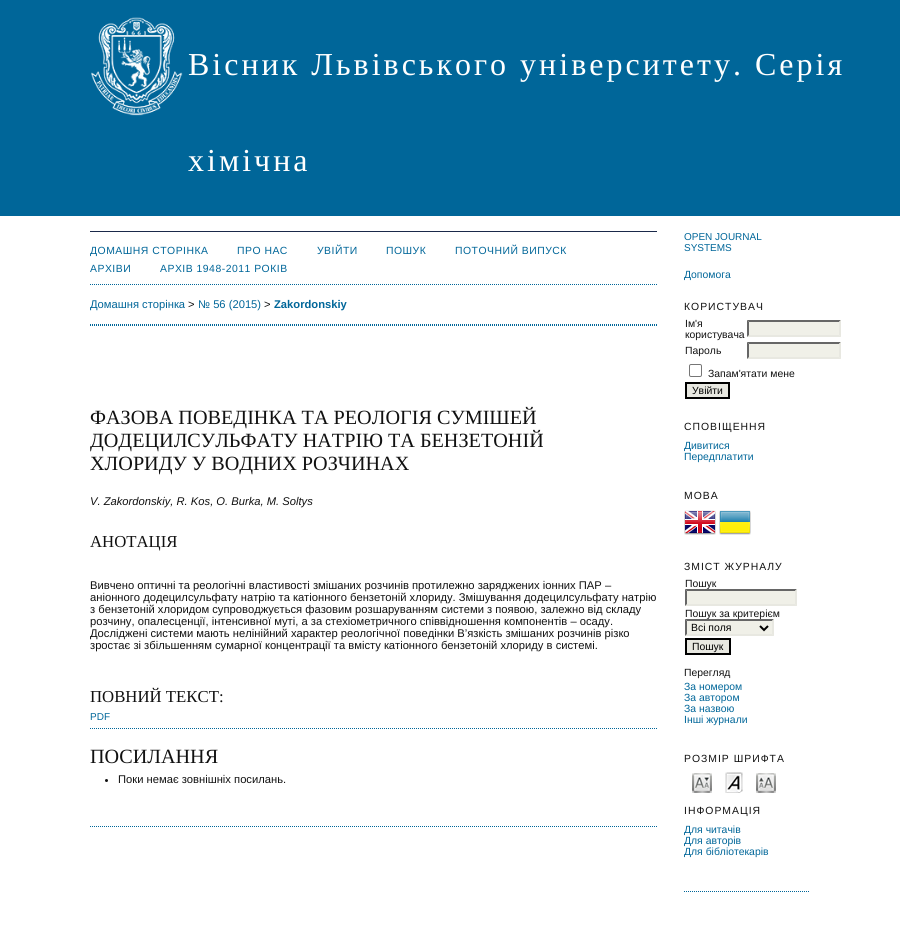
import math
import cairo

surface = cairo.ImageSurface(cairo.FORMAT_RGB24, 900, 927)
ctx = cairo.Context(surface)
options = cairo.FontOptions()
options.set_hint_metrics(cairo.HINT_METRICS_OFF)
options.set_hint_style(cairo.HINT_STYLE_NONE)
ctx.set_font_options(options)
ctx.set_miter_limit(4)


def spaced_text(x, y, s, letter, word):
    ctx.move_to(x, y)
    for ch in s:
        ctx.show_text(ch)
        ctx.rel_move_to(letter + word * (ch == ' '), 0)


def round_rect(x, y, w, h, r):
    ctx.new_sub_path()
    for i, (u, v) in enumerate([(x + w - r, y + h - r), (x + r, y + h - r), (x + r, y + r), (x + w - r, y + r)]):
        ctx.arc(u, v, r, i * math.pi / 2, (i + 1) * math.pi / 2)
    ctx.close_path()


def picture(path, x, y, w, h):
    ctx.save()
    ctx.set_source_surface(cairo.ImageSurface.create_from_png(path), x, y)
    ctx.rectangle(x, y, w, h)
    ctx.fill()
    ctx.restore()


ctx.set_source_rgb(1, 1, 1)
ctx.paint()
ctx.set_source_rgb(0, 0.4, 0.6)
ctx.rectangle(0, 0, 900, 216)
ctx.fill()
picture("img1.png", 91, 17, 92, 99)
ctx.select_font_face("Liberation Serif")
ctx.set_font_size(32)
ctx.set_source_rgb(1, 1, 1)
spaced_text(188, 75, "Вісник Львівського університету. Серія", 3, 0)
spaced_text(188, 171, "хімічна", 3, 0)
ctx.set_source_rgb(0.102, 0.161, 0.29)
ctx.rectangle(90, 231, 567, 1)
ctx.fill()
ctx.new_path()
ctx.move_to(90, 826.5)
ctx.line_to(657, 826.5)
ctx.set_source_rgb(0, 0.4, 0.6)
ctx.set_line_width(1)
ctx.set_dash([1, 1])
ctx.stroke()
ctx.new_path()
ctx.move_to(90, 284.5)
ctx.line_to(657, 284.5)
ctx.stroke()
ctx.select_font_face("Liberation Sans")
ctx.set_font_size(10.4)
spaced_text(90, 254, "ДОМАШНЯ СТОРІНКА", 0.5, 0)
spaced_text(237, 254, "ПРО НАС", 0.5, 0)
spaced_text(317, 254, "УВІЙТИ", 0.5, 0)
spaced_text(386, 254, "ПОШУК", 0.5, 0)
spaced_text(455, 254, "ПОТОЧНИЙ ВИПУСК", 0.5, 0)
spaced_text(90, 272, "АРХІВИ", 0.5, 0)
spaced_text(160, 272, "АРХІВ 1948-2011 РОКІВ", 0.5, 0)
ctx.new_path()
ctx.move_to(90, 324.5)
ctx.line_to(657, 324.5)
ctx.stroke()
ctx.set_font_size(11.2)
ctx.move_to(90, 308)
ctx.show_text("Домашня сторінка")
ctx.set_source_rgb(0.067, 0.067, 0.067)
ctx.move_to(188, 308)
ctx.show_text(">")
ctx.set_source_rgb(0, 0.4, 0.6)
ctx.move_to(198, 308)
ctx.show_text("№ 56 (2015)")
ctx.set_source_rgb(0.067, 0.067, 0.067)
ctx.move_to(264, 308)
ctx.show_text(">")
ctx.select_font_face("Liberation Sans", cairo.FONT_SLANT_NORMAL, cairo.FONT_WEIGHT_BOLD)
ctx.set_source_rgb(0, 0.4, 0.6)
ctx.move_to(274, 308)
ctx.show_text("Zakordonskiy")
ctx.new_path()
ctx.move_to(90, 325.5)
ctx.line_to(657, 325.5)
ctx.stroke()
ctx.select_font_face("Liberation Serif")
ctx.set_font_size(20.2)
ctx.set_source_rgb(0.067, 0.067, 0.067)
ctx.move_to(90, 424)
ctx.show_text("ФАЗОВА ПОВЕДІНКА ТА РЕОЛОГІЯ СУМІШЕЙ")
ctx.move_to(90, 447)
ctx.show_text("ДОДЕЦИЛСУЛЬФАТУ НАТРІЮ ТА БЕНЗЕТОНІЙ")
ctx.move_to(90, 470)
ctx.show_text("ХЛОРИДУ У ВОДНИХ РОЗЧИНАХ")
ctx.select_font_face("Liberation Sans", cairo.FONT_SLANT_ITALIC)
ctx.set_font_size(11.2)
ctx.move_to(90, 505)
ctx.show_text("V. Zakordonskiy, R. Kos, O. Burka, M. Soltys")
ctx.select_font_face("Liberation Serif")
ctx.set_font_size(16.75)
ctx.move_to(90, 547)
ctx.show_text("АНОТАЦІЯ")
ctx.select_font_face("Liberation Sans")
ctx.set_font_size(11.2)
ctx.move_to(90, 589)
ctx.show_text("Вивчено оптичні та реологічні властивості змішаних розчинів протилежно заряджених іонних ПАР –")
ctx.move_to(90, 601)
ctx.show_text("аніонного додецилсульфату натрію та катіонного бензетоній хлориду. Змішування додецилсульфату натрію")
ctx.move_to(90, 613)
ctx.show_text("з бензетоній хлоридом супроводжується фазовим розшаруванням системи з появою, залежно від складу")
ctx.move_to(90, 625)
ctx.show_text("розчину, опалесценції, інтенсивної муті, а за стехіометричного співвідношення компонентів – осаду.")
ctx.move_to(90, 637)
ctx.show_text("Досліджені системи мають нелінійний характер реологічної поведінки В’язкість змішаних розчинів різко")
ctx.move_to(90, 649)
ctx.show_text("зростає зі збільшенням сумарної концентрації та вмісту катіонного бензетоній хлориду в системі.")
ctx.select_font_face("Liberation Serif")
ctx.set_font_size(16.75)
ctx.move_to(90, 702)
ctx.show_text("ПОВНИЙ ТЕКСТ:")
ctx.select_font_face("Liberation Sans")
ctx.set_font_size(10)
ctx.set_source_rgb(0, 0.4, 0.6)
ctx.move_to(90, 720)
ctx.show_text("PDF")
ctx.new_path()
ctx.move_to(90, 728.5)
ctx.line_to(657, 728.5)
ctx.stroke()
ctx.select_font_face("Liberation Serif")
ctx.set_font_size(20.2)
ctx.set_source_rgb(0.067, 0.067, 0.067)
ctx.move_to(90, 763)
ctx.show_text("ПОСИЛАННЯ")
ctx.new_path()
ctx.arc(106.5, 780.5, 1.5, 0, 2 * math.pi)
ctx.fill()
ctx.select_font_face("Liberation Sans")
ctx.set_font_size(11.2)
ctx.move_to(118, 783)
ctx.show_text("Поки немає зовнішніх посилань.")
ctx.new_path()
ctx.move_to(684, 891.5)
ctx.line_to(810, 891.5)
ctx.set_source_rgb(0, 0.4, 0.6)
ctx.stroke()
ctx.set_font_size(10)
ctx.move_to(684, 240)
ctx.show_text("OPEN JOURNAL")
ctx.move_to(684, 251)
ctx.show_text("SYSTEMS")
ctx.set_font_size(10.4)
ctx.move_to(684, 278)
ctx.show_text("Допомога")
ctx.set_source_rgb(0.067, 0.067, 0.067)
spaced_text(684, 310, "КОРИСТУВАЧ", 1, 0)
ctx.move_to(685, 327)
ctx.show_text("Ім'я")
ctx.move_to(685, 338)
ctx.show_text("користувача")
ctx.set_source_rgb(0.941, 0.941, 0.91)
ctx.rectangle(747, 320, 94, 17)
ctx.fill()
ctx.set_source_rgb(0.4, 0.4, 0.4)
ctx.new_path()
ctx.move_to(747, 320)
ctx.line_to(841, 320)
ctx.line_to(839, 322)
ctx.line_to(749, 322)
ctx.close_path()
ctx.fill()
ctx.set_source_rgb(0.91, 0.91, 0.882)
ctx.new_path()
ctx.move_to(841, 320)
ctx.line_to(841, 337)
ctx.line_to(839, 335)
ctx.line_to(839, 322)
ctx.close_path()
ctx.fill()
ctx.new_path()
ctx.move_to(841, 337)
ctx.line_to(747, 337)
ctx.line_to(749, 335)
ctx.line_to(839, 335)
ctx.close_path()
ctx.fill()
ctx.set_source_rgb(0.4, 0.4, 0.4)
ctx.new_path()
ctx.move_to(747, 337)
ctx.line_to(747, 320)
ctx.line_to(749, 322)
ctx.line_to(749, 335)
ctx.close_path()
ctx.fill()
ctx.set_source_rgb(0.067, 0.067, 0.067)
ctx.move_to(685, 354)
ctx.show_text("Пароль")
ctx.set_source_rgb(0.941, 0.941, 0.91)
ctx.rectangle(747, 342, 94, 17)
ctx.fill()
ctx.set_source_rgb(0.4, 0.4, 0.4)
ctx.new_path()
ctx.move_to(747, 342)
ctx.line_to(841, 342)
ctx.line_to(839, 344)
ctx.line_to(749, 344)
ctx.close_path()
ctx.fill()
ctx.set_source_rgb(0.91, 0.91, 0.882)
ctx.new_path()
ctx.move_to(841, 342)
ctx.line_to(841, 359)
ctx.line_to(839, 357)
ctx.line_to(839, 344)
ctx.close_path()
ctx.fill()
ctx.new_path()
ctx.move_to(841, 359)
ctx.line_to(747, 359)
ctx.line_to(749, 357)
ctx.line_to(839, 357)
ctx.close_path()
ctx.fill()
ctx.set_source_rgb(0.4, 0.4, 0.4)
ctx.new_path()
ctx.move_to(747, 359)
ctx.line_to(747, 342)
ctx.line_to(749, 344)
ctx.line_to(749, 357)
ctx.close_path()
ctx.fill()
round_rect(689.5, 364.5, 12, 12, 1.5)
ctx.set_source_rgb(0.463, 0.463, 0.463)
ctx.set_dash([])
ctx.stroke()
ctx.set_source_rgb(0.067, 0.067, 0.067)
ctx.move_to(708, 377)
ctx.show_text("Запам'ятати мене")
ctx.set_source_rgb(0.91, 0.91, 0.882)
ctx.rectangle(686, 383, 43, 15)
ctx.fill_preserve()
ctx.set_source_rgb(0, 0, 0)
ctx.set_line_width(2)
ctx.stroke()
ctx.move_to(692, 394)
ctx.show_text("Увійти")
ctx.set_source_rgb(0.067, 0.067, 0.067)
spaced_text(684, 430, "СПОВІЩЕННЯ", 1, 0)
ctx.set_source_rgb(0, 0.4, 0.6)
ctx.move_to(684, 449)
ctx.show_text("Дивитися")
ctx.move_to(684, 460)
ctx.show_text("Передплатити")
ctx.set_source_rgb(0.067, 0.067, 0.067)
spaced_text(684, 499, "МОВА", 1, 0)
picture("img2.png", 684, 510, 32, 25)
picture("img3.png", 719, 510, 32, 25)
spaced_text(684, 570, "ЗМІСТ ЖУРНАЛУ", 1, 0)
ctx.move_to(685, 587)
ctx.show_text("Пошук")
ctx.set_source_rgb(0.941, 0.941, 0.91)
ctx.rectangle(685, 589, 112, 17)
ctx.fill()
ctx.set_source_rgb(0.4, 0.4, 0.4)
ctx.new_path()
ctx.move_to(685, 589)
ctx.line_to(797, 589)
ctx.line_to(795, 591)
ctx.line_to(687, 591)
ctx.close_path()
ctx.fill()
ctx.set_source_rgb(0.91, 0.91, 0.882)
ctx.new_path()
ctx.move_to(797, 589)
ctx.line_to(797, 606)
ctx.line_to(795, 604)
ctx.line_to(795, 591)
ctx.close_path()
ctx.fill()
ctx.new_path()
ctx.move_to(797, 606)
ctx.line_to(685, 606)
ctx.line_to(687, 604)
ctx.line_to(795, 604)
ctx.close_path()
ctx.fill()
ctx.set_source_rgb(0.4, 0.4, 0.4)
ctx.new_path()
ctx.move_to(685, 606)
ctx.line_to(685, 589)
ctx.line_to(687, 591)
ctx.line_to(687, 604)
ctx.close_path()
ctx.fill()
ctx.set_source_rgb(0.067, 0.067, 0.067)
ctx.move_to(685, 617)
ctx.show_text("Пошук за критерієм")
ctx.set_source_rgb(0.941, 0.941, 0.91)
ctx.rectangle(685, 619, 89, 17)
ctx.fill()
ctx.set_source_rgb(0.4, 0.4, 0.4)
ctx.new_path()
ctx.move_to(685, 619)
ctx.line_to(774, 619)
ctx.line_to(772, 621)
ctx.line_to(687, 621)
ctx.close_path()
ctx.fill()
ctx.set_source_rgb(0.91, 0.91, 0.882)
ctx.new_path()
ctx.move_to(774, 619)
ctx.line_to(774, 636)
ctx.line_to(772, 634)
ctx.line_to(772, 621)
ctx.close_path()
ctx.fill()
ctx.new_path()
ctx.move_to(774, 636)
ctx.line_to(685, 636)
ctx.line_to(687, 634)
ctx.line_to(772, 634)
ctx.close_path()
ctx.fill()
ctx.set_source_rgb(0.4, 0.4, 0.4)
ctx.new_path()
ctx.move_to(685, 636)
ctx.line_to(685, 619)
ctx.line_to(687, 621)
ctx.line_to(687, 634)
ctx.close_path()
ctx.fill()
ctx.new_path()
ctx.move_to(760, 626)
ctx.line_to(764, 630)
ctx.line_to(768, 626)
ctx.set_source_rgb(0, 0, 0)
ctx.stroke()
ctx.move_to(691, 631)
ctx.show_text("Всі поля")
ctx.set_source_rgb(0.91, 0.91, 0.882)
ctx.rectangle(686, 639, 44, 15)
ctx.fill_preserve()
ctx.set_source_rgb(0, 0, 0)
ctx.stroke()
ctx.move_to(692, 650)
ctx.show_text("Пошук")
ctx.set_source_rgb(0.067, 0.067, 0.067)
ctx.move_to(684, 676)
ctx.show_text("Перегляд")
ctx.set_source_rgb(0, 0.4, 0.6)
ctx.move_to(684, 690)
ctx.show_text("За номером")
ctx.move_to(684, 701)
ctx.show_text("За автором")
ctx.move_to(684, 712)
ctx.show_text("За назвою")
ctx.move_to(684, 723)
ctx.show_text("Інші журнали")
ctx.set_source_rgb(0.067, 0.067, 0.067)
spaced_text(684, 762, "РОЗМІР ШРИФТА", 1, 0)
picture("img4.png", 692, 773, 20, 20)
picture("img5.png", 725, 772, 18, 21)
picture("img6.png", 756, 773, 20, 20)
spaced_text(684, 814, "ІНФОРМАЦІЯ", 1, 0)
ctx.set_source_rgb(0, 0.4, 0.6)
ctx.move_to(684, 833)
ctx.show_text("Для читачів")
ctx.move_to(684, 844)
ctx.show_text("Для авторів")
ctx.move_to(684, 855)
ctx.show_text("Для бібліотекарів")
surface.write_to_png("page.png")
